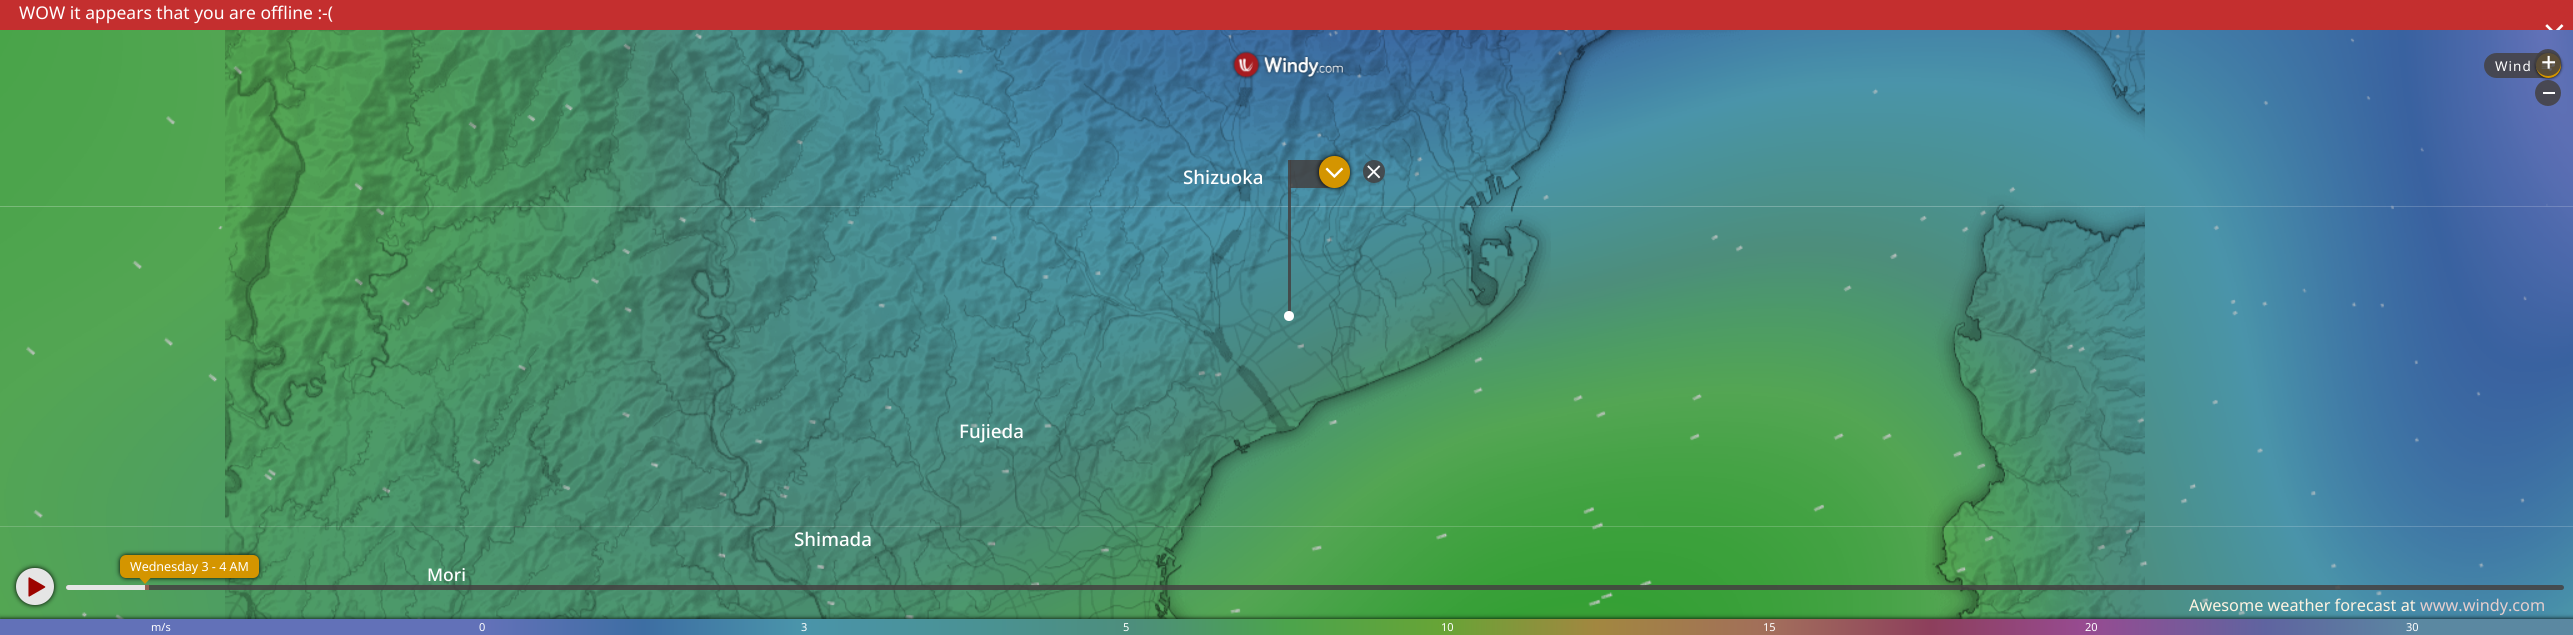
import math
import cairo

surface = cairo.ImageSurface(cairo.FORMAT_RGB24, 2573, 635)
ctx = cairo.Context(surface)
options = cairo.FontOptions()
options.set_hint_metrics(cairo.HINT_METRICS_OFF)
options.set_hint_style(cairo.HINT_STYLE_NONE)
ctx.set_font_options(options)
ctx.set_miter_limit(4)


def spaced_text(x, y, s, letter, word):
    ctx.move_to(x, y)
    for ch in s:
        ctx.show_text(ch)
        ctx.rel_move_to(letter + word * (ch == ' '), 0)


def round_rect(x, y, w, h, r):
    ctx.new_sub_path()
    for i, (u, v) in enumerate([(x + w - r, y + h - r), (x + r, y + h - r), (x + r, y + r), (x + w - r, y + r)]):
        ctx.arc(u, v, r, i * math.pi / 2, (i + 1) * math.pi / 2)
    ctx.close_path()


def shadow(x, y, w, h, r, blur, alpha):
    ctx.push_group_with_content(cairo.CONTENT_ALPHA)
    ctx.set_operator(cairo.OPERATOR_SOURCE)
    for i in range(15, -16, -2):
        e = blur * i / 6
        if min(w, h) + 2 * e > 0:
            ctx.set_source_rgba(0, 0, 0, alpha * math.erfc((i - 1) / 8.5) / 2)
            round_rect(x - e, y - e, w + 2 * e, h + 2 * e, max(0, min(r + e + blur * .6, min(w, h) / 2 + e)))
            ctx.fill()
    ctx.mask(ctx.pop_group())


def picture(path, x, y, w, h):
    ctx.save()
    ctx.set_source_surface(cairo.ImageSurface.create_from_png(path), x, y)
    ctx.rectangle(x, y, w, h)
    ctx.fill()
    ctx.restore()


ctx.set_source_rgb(1, 1, 1)
ctx.paint()
ctx.set_source_rgb(0.769, 0.184, 0.184)
ctx.rectangle(0, 0, 2573, 30)
ctx.fill()
ctx.select_font_face("Noto Sans")
ctx.set_font_size(17.5)
ctx.set_source_rgb(1, 1, 1)
ctx.move_to(19, 19)
ctx.show_text("WOW it appears that you are offline :-(")
picture("img1.png", 2545, 24, 19, 6)
picture("img10.png", 1185, 30, 320, 176)
picture("img6.png", 0, 30, 225, 176)
picture("img7.png", 225, 30, 320, 176)
picture("img8.png", 545, 30, 320, 176)
picture("img9.png", 865, 30, 320, 176)
picture("img11.png", 1505, 30, 320, 176)
picture("img12.png", 1825, 30, 320, 176)
picture("img22.png", 2145, 206, 320, 321)
picture("img13.png", 2145, 30, 320, 177)
picture("img23.png", 2465, 206, 108, 321)
picture("img14.png", 2465, 30, 108, 177)
picture("img15.png", 0, 206, 225, 321)
picture("img16.png", 225, 206, 320, 321)
picture("img17.png", 545, 206, 320, 321)
picture("img18.png", 865, 206, 320, 321)
picture("img19.png", 1185, 206, 320, 321)
picture("img20.png", 1505, 206, 320, 321)
picture("img21.png", 1825, 206, 320, 321)
picture("img24.png", 0, 526, 225, 93)
picture("img25.png", 225, 526, 320, 93)
picture("img26.png", 545, 526, 320, 93)
picture("img27.png", 865, 526, 320, 93)
picture("img28.png", 1185, 526, 320, 93)
picture("img29.png", 1505, 526, 320, 93)
picture("img30.png", 1825, 526, 320, 93)
picture("img31.png", 2145, 526, 320, 93)
picture("img32.png", 2465, 526, 108, 93)
picture("img33.png", 26, 30, 2522, 589)
picture("img37.png", 1185, 30, 320, 176)
picture("img2.png", 1232, 50, 29, 29)
picture("img3.png", 1262, 55, 83, 24)
ctx.set_source_rgba(0.267, 0.255, 0.255, 0.84)
round_rect(2484, 53, 77, 25, 12.5)
ctx.fill()
ctx.set_font_size(13.5)
ctx.set_source_rgb(1, 1, 1)
spaced_text(2495, 71, "Wind", 1, 0)
ctx.set_source_rgb(0, 0, 0)
shadow(2536, 53, 25, 25, 12.5, 1.5, 1)
ctx.set_source_rgb(0.831, 0.584, 0)
ctx.arc(2548.5, 65.5, 12.5, 0, 2 * math.pi)
ctx.fill()
picture("img4.png", 2541, 61, 14, 10)
ctx.set_source_rgba(0.267, 0.255, 0.255, 0.84)
round_rect(2535, 49, 26, 27, 13)
ctx.fill()
picture("img5.png", 2542, 55, 14, 14)
ctx.arc(2548, 93, 13, 0, 2 * math.pi)
ctx.fill()
ctx.set_source_rgb(1, 1, 1)
ctx.rectangle(2543, 92, 12, 2)
ctx.fill()
picture("img34.png", 225, 30, 320, 176)
picture("img35.png", 545, 30, 320, 176)
picture("img36.png", 865, 30, 320, 176)
picture("img38.png", 1505, 30, 241, 176)
picture("img39.png", 1987, 30, 158, 176)
picture("img40.png", 225, 206, 320, 321)
picture("img41.png", 545, 206, 320, 321)
picture("img42.png", 865, 206, 320, 321)
picture("img43.png", 1185, 206, 320, 321)
picture("img44.png", 1505, 206, 46, 124)
picture("img45.png", 1928, 206, 217, 321)
picture("img46.png", 225, 526, 320, 93)
picture("img47.png", 545, 526, 320, 93)
picture("img48.png", 865, 526, 320, 93)
picture("img49.png", 1185, 526, 16, 93)
picture("img50.png", 1925, 526, 220, 93)
ctx.select_font_face("Noto Sans Medium")
ctx.set_font_size(18.75)
ctx.move_to(1183, 184)
ctx.show_text("Shizuoka")
ctx.move_to(959, 438)
ctx.show_text("Fujieda")
ctx.move_to(794, 546)
ctx.show_text("Shimada")
ctx.set_font_size(17.5)
ctx.move_to(427, 581)
ctx.show_text("Mori")
ctx.set_source_rgba(0.267, 0.255, 0.255, 0.84)
ctx.rectangle(1288, 160, 3, 156)
ctx.fill()
ctx.set_source_rgb(1, 1, 1)
ctx.arc(1289, 316, 5, 0, 2 * math.pi)
ctx.fill()
ctx.set_source_rgba(0.267, 0.255, 0.255, 0.84)
ctx.new_path()
ctx.move_to(1290, 160)
ctx.line_to(1326, 160)
ctx.curve_to(1333.5, 160, 1340, 166.5, 1340, 174)
ctx.curve_to(1340, 181.5, 1333.5, 188, 1326, 188)
ctx.line_to(1290, 188)
ctx.close_path()
ctx.fill()
ctx.set_source_rgb(0, 0, 0)
shadow(1319, 156, 31, 32, 15.5, 2.5, 1)
ctx.set_source_rgb(0.831, 0.584, 0)
round_rect(1319, 156, 31, 32, 15.5)
ctx.fill()
picture("img51.png", 1325, 167, 19, 11)
ctx.set_source_rgba(0.267, 0.255, 0.255, 0.84)
round_rect(1363, 160, 22, 23, 11)
ctx.fill()
picture("img52.png", 1367, 165, 14, 14)
ctx.set_source_rgb(0, 0, 0)
shadow(16, 568, 38, 37, 18.5, 2.5, 1)
ctx.set_source_rgb(0.898, 0.898, 0.898)
round_rect(16, 568, 38, 37, 18.5)
ctx.fill()
picture("img53.png", 28, 577, 18, 20)
ctx.set_source_rgb(0, 0, 0)
shadow(120, 555, 139, 23, 6, 2.5, 1)
ctx.set_source_rgb(0.831, 0.584, 0)
round_rect(120, 555, 139, 23, 6)
ctx.fill()
ctx.select_font_face("Noto Sans")
ctx.set_font_size(12.5)
ctx.set_source_rgb(1, 1, 1)
ctx.move_to(130, 571)
ctx.show_text("Wednesday 3 - 4 AM")
ctx.set_source_rgb(0.831, 0.584, 0)
ctx.new_path()
ctx.move_to(139, 577.5)
ctx.line_to(151, 577.5)
ctx.line_to(145, 584)
ctx.close_path()
ctx.fill()
ctx.set_source_rgba(0.267, 0.255, 0.255, 0.84)
round_rect(66, 585, 2498, 5, 2.5)
ctx.fill()
ctx.set_source_rgb(0.898, 0.898, 0.898)
ctx.new_path()
ctx.move_to(68.5, 585)
ctx.line_to(145, 585)
ctx.line_to(145, 590)
ctx.line_to(68.5, 590)
ctx.curve_to(67, 590, 66, 589, 66, 587.5)
ctx.curve_to(66, 586, 67, 585, 68.5, 585)
ctx.close_path()
ctx.fill()
ctx.set_source_rgb(0.58, 0.376, 0.318)
ctx.rectangle(145, 585, 4, 5)
ctx.fill()
ctx.set_source_rgb(0, 0, 0)
shadow(0, 619, 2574, 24, 0, 2.5, 1)
ctx.set_font_size(16.25)
ctx.set_source_rgb(1, 0.953, 0.882)
ctx.move_to(2189, 611)
ctx.show_text("Awesome weather forecast at")
ctx.set_source_rgb(0.902, 0.808, 0.808)
ctx.move_to(2420, 611)
ctx.show_text("www.windy.com")
gradient = cairo.LinearGradient(0, 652, 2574, 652)
gradient.add_color_stop_rgba(0, 0.384, 0.443, 0.722, 1)
gradient.add_color_stop_rgba(0.19, 0.384, 0.443, 0.722, 1)
gradient.add_color_stop_rgba(0.25, 0.239, 0.431, 0.639, 1)
gradient.add_color_stop_rgba(0.31, 0.29, 0.58, 0.667, 1)
gradient.add_color_stop_rgba(0.38, 0.29, 0.573, 0.58, 1)
gradient.add_color_stop_rgba(0.44, 0.302, 0.557, 0.486, 1)
gradient.add_color_stop_rgba(0.5, 0.298, 0.643, 0.298, 1)
gradient.add_color_stop_rgba(0.56, 0.404, 0.643, 0.212, 1)
gradient.add_color_stop_rgba(0.62, 0.635, 0.529, 0.251, 1)
gradient.add_color_stop_rgba(0.69, 0.635, 0.427, 0.361, 1)
gradient.add_color_stop_rgba(0.75, 0.553, 0.247, 0.361, 1)
gradient.add_color_stop_rgba(0.81, 0.592, 0.294, 0.569, 1)
gradient.add_color_stop_rgba(0.88, 0.373, 0.392, 0.627, 1)
gradient.add_color_stop_rgba(0.94, 0.357, 0.533, 0.631, 1)
gradient.add_color_stop_rgba(1, 0.357, 0.533, 0.631, 1)
ctx.set_source(gradient)
ctx.rectangle(0, 619, 2573, 16)
ctx.fill()
ctx.set_font_size(11)
ctx.set_source_rgb(1, 1, 1)
ctx.move_to(151, 631)
ctx.show_text("m/s")
ctx.move_to(479, 631)
ctx.show_text("0")
ctx.move_to(801, 631)
ctx.show_text("3")
ctx.move_to(1123, 631)
ctx.show_text("5")
ctx.move_to(1441, 631)
ctx.show_text("10")
ctx.move_to(1763, 631)
ctx.show_text("15")
ctx.move_to(2085, 631)
ctx.show_text("20")
ctx.move_to(2406, 631)
ctx.show_text("30")
surface.write_to_png("page.png")
